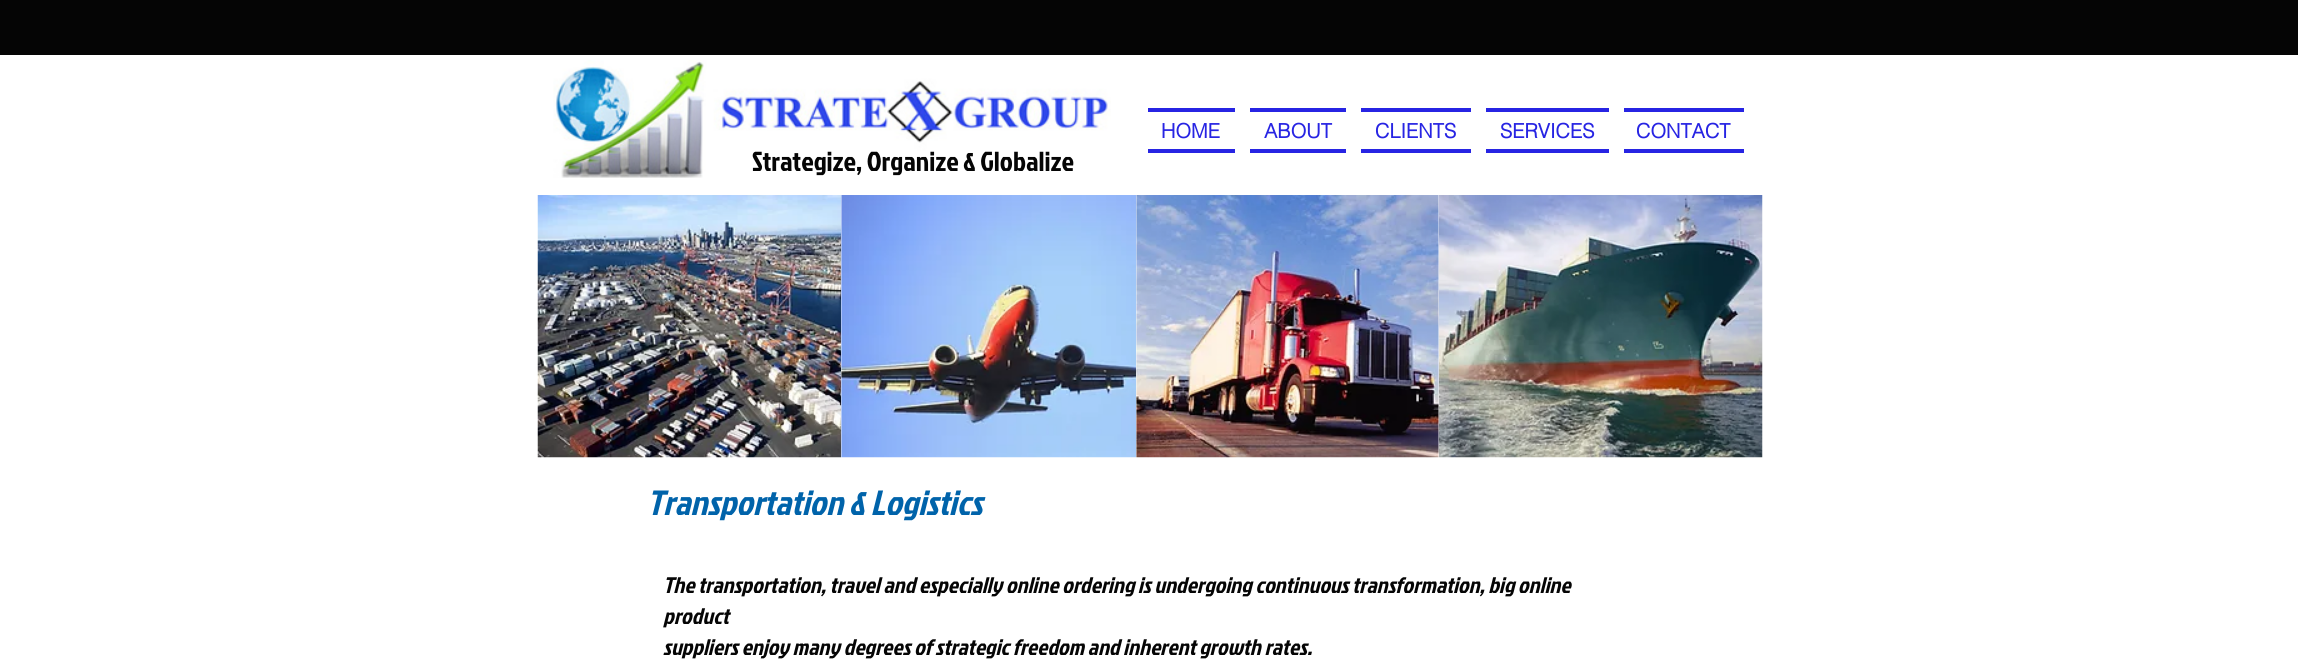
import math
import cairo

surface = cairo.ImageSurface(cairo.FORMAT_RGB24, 2298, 668)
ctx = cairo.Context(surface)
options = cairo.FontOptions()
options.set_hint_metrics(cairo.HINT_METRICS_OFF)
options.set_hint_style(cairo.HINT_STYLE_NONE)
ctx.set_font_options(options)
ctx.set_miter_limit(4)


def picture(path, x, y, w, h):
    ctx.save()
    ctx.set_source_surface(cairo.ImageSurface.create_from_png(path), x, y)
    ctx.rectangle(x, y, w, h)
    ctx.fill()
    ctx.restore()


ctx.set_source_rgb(1, 1, 1)
ctx.paint()
ctx.set_source_rgb(0.02, 0.02, 0.02)
ctx.rectangle(0, 0, 2298, 55)
ctx.fill()
picture("img1.png", 553, 60, 558, 118)
ctx.set_source_rgb(0.153, 0.141, 0.89)
ctx.rectangle(1148, 108, 87, 4)
ctx.fill()
ctx.rectangle(1148, 149, 87, 4)
ctx.fill()
ctx.select_font_face("helvetica", cairo.FONT_SLANT_NORMAL, cairo.FONT_WEIGHT_BOLD)
ctx.set_font_size(20)
ctx.move_to(1161, 138)
ctx.show_text("HOME")
ctx.rectangle(1250, 108, 96, 4)
ctx.fill()
ctx.rectangle(1250, 149, 96, 4)
ctx.fill()
ctx.move_to(1264, 138)
ctx.show_text("ABOUT")
ctx.rectangle(1361, 108, 110, 4)
ctx.fill()
ctx.rectangle(1361, 149, 110, 4)
ctx.fill()
ctx.move_to(1375, 138)
ctx.show_text("CLIENTS")
ctx.rectangle(1486, 108, 123, 4)
ctx.fill()
ctx.rectangle(1486, 149, 123, 4)
ctx.fill()
ctx.move_to(1500, 138)
ctx.show_text("SERVICES")
ctx.rectangle(1624, 108, 120, 4)
ctx.fill()
ctx.rectangle(1624, 149, 120, 4)
ctx.fill()
ctx.move_to(1636, 138)
ctx.show_text("CONTACT")
ctx.select_font_face("Jockey One")
ctx.set_font_size(27.5)
ctx.set_source_rgb(0.02, 0.02, 0.02)
ctx.move_to(752, 171)
ctx.show_text("Strategize, Organize & Globalize")
picture("img2.png", 537, 195, 305, 263)
picture("img3.png", 841, 195, 296, 263)
picture("img4.png", 1136, 195, 303, 263)
picture("img5.png", 1438, 195, 325, 263)
ctx.select_font_face("Jockey One", cairo.FONT_SLANT_ITALIC)
ctx.set_font_size(35)
ctx.set_source_rgb(0, 0.388, 0.667)
ctx.move_to(647, 515)
ctx.show_text("Transportation & Logistics")
ctx.set_font_size(22.5)
ctx.set_source_rgb(0.02, 0.02, 0.02)
ctx.move_to(663, 593)
ctx.show_text("The transportation, travel and especially online ordering is undergoing continuous transformation, big online")
ctx.move_to(663, 624)
ctx.show_text("product")
ctx.move_to(663, 655)
ctx.show_text("suppliers enjoy many degrees of strategic freedom and inherent growth rates.")
surface.write_to_png("page.png")
